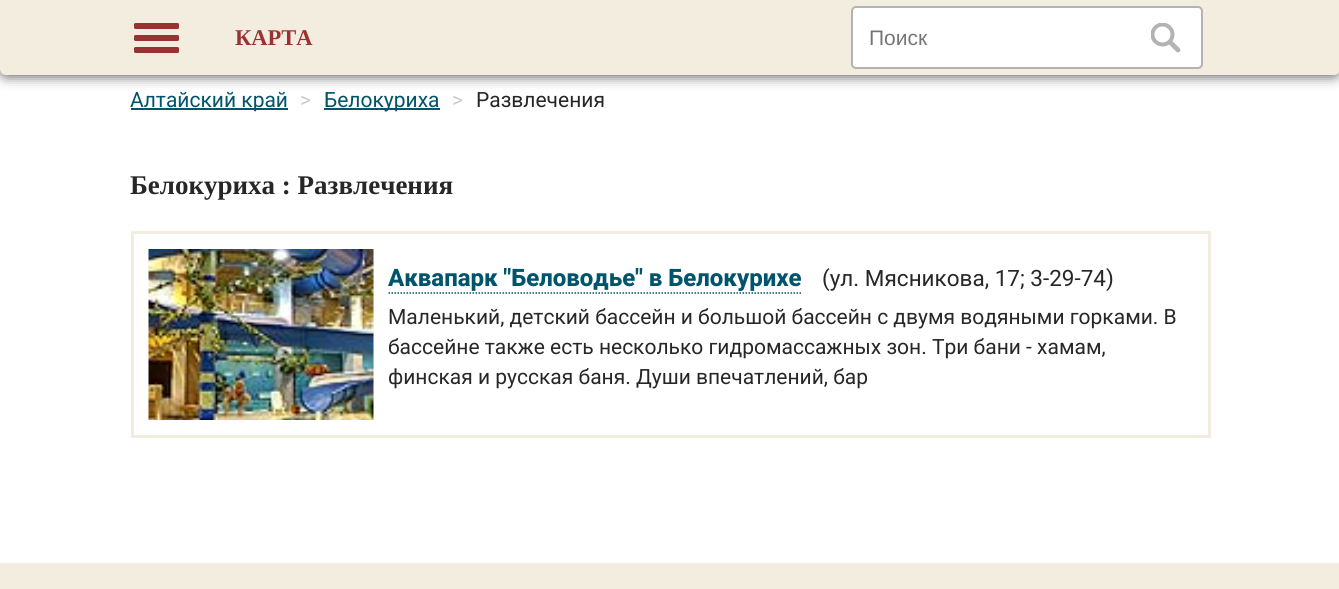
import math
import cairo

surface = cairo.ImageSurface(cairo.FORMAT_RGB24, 1339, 589)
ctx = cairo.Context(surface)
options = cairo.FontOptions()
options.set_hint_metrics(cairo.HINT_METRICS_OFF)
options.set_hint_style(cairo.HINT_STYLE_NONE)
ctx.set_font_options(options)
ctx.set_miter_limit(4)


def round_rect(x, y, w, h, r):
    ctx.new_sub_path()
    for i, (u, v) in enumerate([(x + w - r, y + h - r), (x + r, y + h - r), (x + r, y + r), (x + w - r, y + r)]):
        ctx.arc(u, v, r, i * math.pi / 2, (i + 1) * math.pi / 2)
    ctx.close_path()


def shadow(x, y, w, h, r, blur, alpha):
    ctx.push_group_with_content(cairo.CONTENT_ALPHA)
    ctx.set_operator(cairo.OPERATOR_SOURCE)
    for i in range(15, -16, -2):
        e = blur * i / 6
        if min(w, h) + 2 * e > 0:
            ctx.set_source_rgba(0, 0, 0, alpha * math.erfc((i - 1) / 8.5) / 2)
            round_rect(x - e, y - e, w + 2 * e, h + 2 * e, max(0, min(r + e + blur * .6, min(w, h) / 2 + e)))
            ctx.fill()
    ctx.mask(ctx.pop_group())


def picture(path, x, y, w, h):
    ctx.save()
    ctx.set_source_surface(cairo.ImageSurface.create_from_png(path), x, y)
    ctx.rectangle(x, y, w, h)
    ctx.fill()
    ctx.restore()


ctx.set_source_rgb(1, 1, 1)
ctx.paint()
ctx.set_source_rgb(0, 0, 0)
shadow(-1, -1, 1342, 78, 8, 6, 0.6)
ctx.set_source_rgb(0.953, 0.929, 0.875)
ctx.new_path()
ctx.move_to(0, 0)
ctx.line_to(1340, 0)
ctx.line_to(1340, 69)
ctx.curve_to(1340, 72.5, 1337.5, 75, 1334, 75)
ctx.line_to(6, 75)
ctx.curve_to(2.5, 75, 0, 72.5, 0, 69)
ctx.close_path()
ctx.fill()
ctx.set_source_rgb(0.6, 0.2, 0.2)
round_rect(134, 23, 45, 6, 1.5)
ctx.fill()
round_rect(134, 35, 45, 6, 1.5)
ctx.fill()
round_rect(134, 47, 45, 6, 1.5)
ctx.fill()
ctx.select_font_face("Liberation Serif", cairo.FONT_SLANT_NORMAL, cairo.FONT_WEIGHT_BOLD)
ctx.set_font_size(22.5)
ctx.move_to(235, 45)
ctx.show_text("КАРТА")
ctx.set_source_rgb(1, 1, 1)
round_rect(852, 7, 350, 61, 4)
ctx.fill_preserve()
ctx.set_source_rgb(0.702, 0.702, 0.702)
ctx.stroke()
ctx.select_font_face("Liberation Sans")
ctx.set_font_size(21)
ctx.set_source_rgb(0.459, 0.459, 0.459)
ctx.move_to(869, 45)
ctx.show_text("Поиск")
ctx.save()
ctx.rectangle(1151, 23, 30, 30)
ctx.clip()
ctx.arc(1162.5, 34.5, 10, 0, 2 * math.pi)
ctx.set_source_rgb(0.702, 0.702, 0.702)
ctx.set_line_width(4)
ctx.stroke()
ctx.restore()
ctx.new_path()
ctx.move_to(1178, 50)
ctx.line_to(1170.5, 42.5)
ctx.set_source_rgb(0.702, 0.702, 0.702)
ctx.set_line_width(4.8)
ctx.set_line_cap(cairo.LINE_CAP_ROUND)
ctx.set_line_join(cairo.LINE_JOIN_ROUND)
ctx.set_dash([], 23.27)
ctx.stroke()
ctx.set_source_rgb(0, 0.329, 0.42)
ctx.rectangle(131, 108, 157, 2)
ctx.fill()
ctx.select_font_face("Roboto")
ctx.move_to(130, 107)
ctx.show_text("Алтайский край")
ctx.set_source_rgb(0.8, 0.8, 0.8)
ctx.move_to(300, 107)
ctx.show_text(">")
ctx.set_source_rgb(0, 0.329, 0.42)
ctx.rectangle(324, 108, 116, 2)
ctx.fill()
ctx.move_to(324, 107)
ctx.show_text("Белокуриха")
ctx.set_source_rgb(0.8, 0.8, 0.8)
ctx.move_to(452, 107)
ctx.show_text(">")
ctx.set_source_rgb(0.153, 0.153, 0.153)
ctx.move_to(476, 107)
ctx.show_text("Развлечения")
ctx.select_font_face("Liberation Serif", cairo.FONT_SLANT_NORMAL, cairo.FONT_WEIGHT_BOLD)
ctx.set_font_size(27)
ctx.move_to(130, 194)
ctx.show_text("Белокуриха : Развлечения")
ctx.rectangle(132.5, 232.5, 1077, 204)
ctx.set_source_rgb(0.953, 0.929, 0.875)
ctx.set_line_width(3)
ctx.set_line_cap(cairo.LINE_CAP_BUTT)
ctx.set_line_join(cairo.LINE_JOIN_MITER)
ctx.set_dash([])
ctx.stroke()
picture("img1.png", 148, 249, 226, 171)
ctx.select_font_face("Roboto ExtraBold")
ctx.set_font_size(24)
ctx.set_source_rgb(0, 0.329, 0.42)
ctx.move_to(388, 286)
ctx.show_text("Аквапарк \"Беловодье\" в Белокурихе")
ctx.new_path()
ctx.move_to(388.5, 293)
ctx.line_to(801, 293)
ctx.set_line_width(1.5)
ctx.set_dash([1.5, 1.5])
ctx.stroke()
ctx.select_font_face("Roboto")
ctx.set_font_size(22.5)
ctx.set_source_rgb(0.153, 0.153, 0.153)
ctx.move_to(822, 286)
ctx.show_text("(ул. Мясникова, 17; 3-29-74)")
ctx.set_font_size(21)
ctx.move_to(388, 324)
ctx.show_text("Маленький, детский бассейн и большой бассейн с двумя водяными горками. В")
ctx.move_to(388, 354)
ctx.show_text("бассейне также есть несколько гидромассажных зон. Три бани - хамам,")
ctx.move_to(388, 384)
ctx.show_text("финская и русская баня. Души впечатлений, бар")
ctx.set_source_rgb(0.953, 0.929, 0.875)
ctx.rectangle(0, 563, 1339, 26)
ctx.fill()
surface.write_to_png("page.png")
